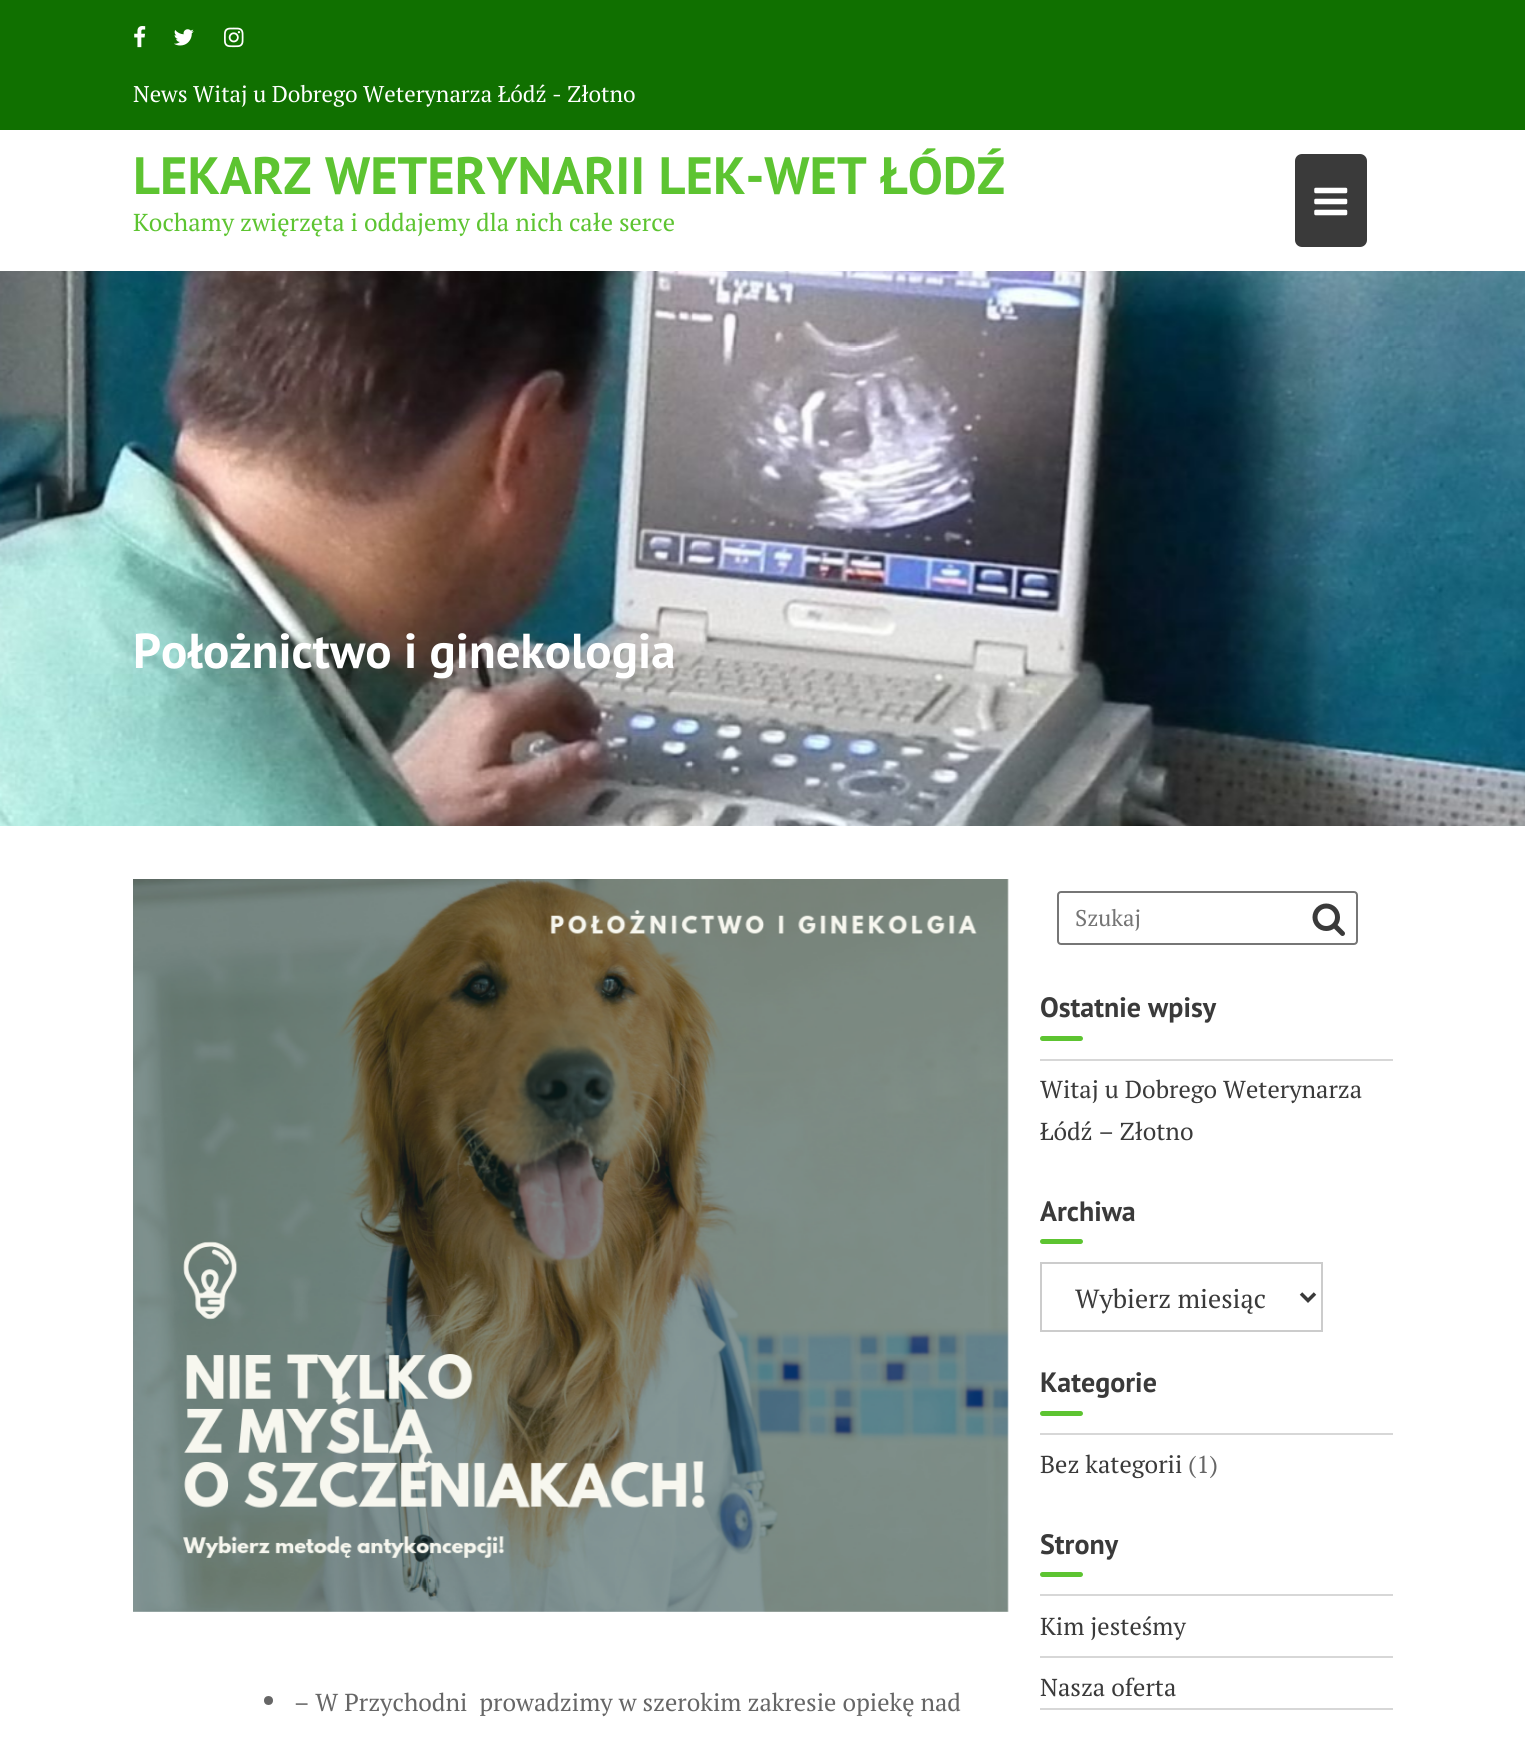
import math
import cairo

surface = cairo.ImageSurface(cairo.FORMAT_RGB24, 1525, 1737)
ctx = cairo.Context(surface)
options = cairo.FontOptions()
options.set_hint_metrics(cairo.HINT_METRICS_OFF)
options.set_hint_style(cairo.HINT_STYLE_NONE)
ctx.set_font_options(options)
ctx.set_miter_limit(4)


def round_rect(x, y, w, h, r):
    ctx.new_sub_path()
    for i, (u, v) in enumerate([(x + w - r, y + h - r), (x + r, y + h - r), (x + r, y + r), (x + w - r, y + r)]):
        ctx.arc(u, v, r, i * math.pi / 2, (i + 1) * math.pi / 2)
    ctx.close_path()


def picture(path, x, y, w, h):
    ctx.save()
    ctx.set_source_surface(cairo.ImageSurface.create_from_png(path), x, y)
    ctx.rectangle(x, y, w, h)
    ctx.fill()
    ctx.restore()


ctx.set_source_rgb(1, 1, 1)
ctx.paint()
ctx.set_source_rgb(0.063, 0.439, 0)
ctx.rectangle(0, 0, 1525, 130)
ctx.fill()
picture("img1.png", 134, 26, 12, 22)
picture("img2.png", 174, 29, 20, 17)
picture("img3.png", 224, 27, 20, 21)
ctx.select_font_face("PT Serif")
ctx.set_font_size(22.75)
ctx.set_source_rgb(1, 1, 1)
ctx.move_to(133, 102)
ctx.show_text("News Witaj u Dobrego Weterynarza Łódź - Złotno")
ctx.select_font_face("PT Sans", cairo.FONT_SLANT_NORMAL, cairo.FONT_WEIGHT_BOLD)
ctx.set_font_size(52.5)
ctx.set_source_rgb(0.365, 0.769, 0.192)
ctx.move_to(133, 194)
ctx.show_text("LEKARZ WETERYNARII LEK-WET ŁÓDŹ")
ctx.set_source_rgb(0.227, 0.227, 0.227)
round_rect(1295, 154, 72, 93, 7)
ctx.fill()
picture("img4.png", 1314, 187, 34, 29)
ctx.select_font_face("PT Serif")
ctx.set_font_size(24.5)
ctx.set_source_rgb(0.365, 0.769, 0.192)
ctx.move_to(133, 231)
ctx.show_text("Kochamy zwięrzęta i oddajemy dla nich całe serce")
picture("img5.png", 0, 271, 1525, 555)
ctx.select_font_face("PT Sans", cairo.FONT_SLANT_NORMAL, cairo.FONT_WEIGHT_BOLD)
ctx.set_font_size(49)
ctx.set_source_rgb(1, 1, 1)
ctx.move_to(133, 668)
ctx.show_text("Położnictwo i ginekologia")
round_rect(1058, 892, 299, 52, 3)
ctx.set_source_rgb(0.463, 0.463, 0.463)
ctx.stroke()
ctx.select_font_face("PT Serif")
ctx.set_font_size(22.75)
ctx.set_source_rgb(0.459, 0.459, 0.459)
ctx.move_to(1075, 926)
ctx.show_text("Szukaj")
picture("img6.png", 1312, 903, 33, 33)
ctx.select_font_face("PT Sans", cairo.FONT_SLANT_NORMAL, cairo.FONT_WEIGHT_BOLD)
ctx.set_font_size(28)
ctx.set_source_rgb(0.227, 0.227, 0.227)
ctx.move_to(1040, 1017)
ctx.show_text("Ostatnie wpisy")
ctx.set_source_rgb(0.365, 0.769, 0.192)
round_rect(1040, 1036, 43, 5, 2.5)
ctx.fill()
ctx.set_source_rgb(0.843, 0.843, 0.843)
ctx.rectangle(1040, 1059, 353, 2)
ctx.fill()
ctx.select_font_face("PT Serif")
ctx.set_font_size(24.5)
ctx.set_source_rgb(0.227, 0.227, 0.227)
ctx.move_to(1040, 1098)
ctx.show_text("Witaj u Dobrego Weterynarza")
ctx.move_to(1040, 1140)
ctx.show_text("Łódź – Złotno")
ctx.select_font_face("PT Sans", cairo.FONT_SLANT_NORMAL, cairo.FONT_WEIGHT_BOLD)
ctx.set_font_size(28)
ctx.move_to(1040, 1221)
ctx.show_text("Archiwa")
ctx.set_source_rgb(0.365, 0.769, 0.192)
round_rect(1040, 1239, 43, 5, 2.5)
ctx.fill()
ctx.rectangle(1041, 1263, 281, 68)
ctx.set_source_rgb(0.8, 0.8, 0.8)
ctx.stroke()
ctx.new_path()
ctx.move_to(1301, 1293.5)
ctx.line_to(1308, 1300.5)
ctx.line_to(1315, 1293.5)
ctx.set_source_rgb(0.227, 0.227, 0.227)
ctx.set_line_width(3.5)
ctx.stroke()
ctx.select_font_face("PT Serif")
ctx.set_font_size(26.25)
ctx.move_to(1075, 1308)
ctx.show_text("Wybierz miesiąc")
ctx.select_font_face("PT Sans", cairo.FONT_SLANT_NORMAL, cairo.FONT_WEIGHT_BOLD)
ctx.set_font_size(28)
ctx.move_to(1040, 1392)
ctx.show_text("Kategorie")
ctx.set_source_rgb(0.365, 0.769, 0.192)
round_rect(1040, 1411, 43, 5, 2.5)
ctx.fill()
ctx.set_source_rgb(0.843, 0.843, 0.843)
ctx.rectangle(1040, 1433, 353, 2)
ctx.fill()
ctx.select_font_face("PT Serif")
ctx.set_font_size(24.5)
ctx.set_source_rgb(0.227, 0.227, 0.227)
ctx.move_to(1040, 1473)
ctx.show_text("Bez kategorii")
ctx.set_source_rgb(0.4, 0.4, 0.4)
ctx.move_to(1188, 1473)
ctx.show_text("(1)")
ctx.select_font_face("PT Sans", cairo.FONT_SLANT_NORMAL, cairo.FONT_WEIGHT_BOLD)
ctx.set_font_size(28)
ctx.set_source_rgb(0.227, 0.227, 0.227)
ctx.move_to(1040, 1554)
ctx.show_text("Strony")
ctx.set_source_rgb(0.365, 0.769, 0.192)
round_rect(1040, 1572, 43, 5, 2.5)
ctx.fill()
ctx.set_source_rgb(0.843, 0.843, 0.843)
ctx.rectangle(1040, 1594, 353, 2)
ctx.fill()
ctx.select_font_face("PT Serif")
ctx.set_font_size(24.5)
ctx.set_source_rgb(0.227, 0.227, 0.227)
ctx.move_to(1040, 1635)
ctx.show_text("Kim jesteśmy")
ctx.set_source_rgb(0.843, 0.843, 0.843)
ctx.rectangle(1040, 1656, 353, 2)
ctx.fill()
ctx.set_source_rgb(0.227, 0.227, 0.227)
ctx.move_to(1040, 1696)
ctx.show_text("Nasza oferta")
ctx.set_source_rgb(0.843, 0.843, 0.843)
ctx.rectangle(1040, 1708, 353, 2)
ctx.fill()
picture("img7.png", 133, 879, 876, 733)
ctx.set_source_rgb(0.4, 0.4, 0.4)
ctx.arc(268.5, 1700.5, 4.5, 0, 2 * math.pi)
ctx.fill()
ctx.move_to(294, 1711)
ctx.show_text("– W Przychodni  prowadzimy w szerokim zakresie opiekę nad")
surface.write_to_png("page.png")
